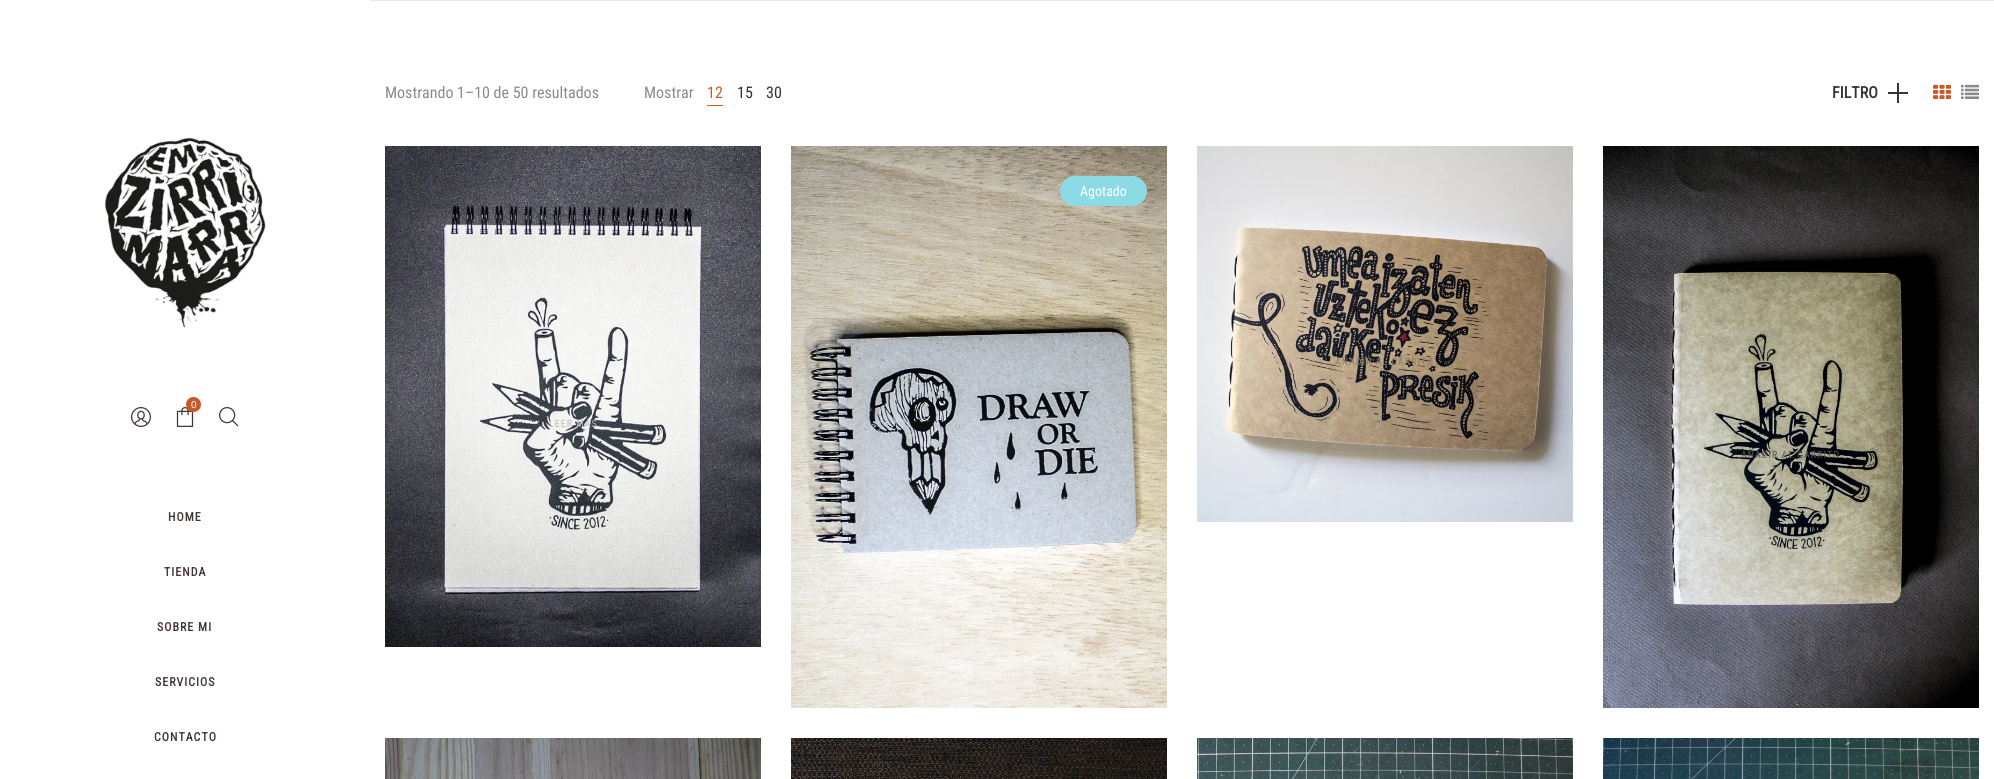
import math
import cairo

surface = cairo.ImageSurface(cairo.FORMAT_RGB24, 1994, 779)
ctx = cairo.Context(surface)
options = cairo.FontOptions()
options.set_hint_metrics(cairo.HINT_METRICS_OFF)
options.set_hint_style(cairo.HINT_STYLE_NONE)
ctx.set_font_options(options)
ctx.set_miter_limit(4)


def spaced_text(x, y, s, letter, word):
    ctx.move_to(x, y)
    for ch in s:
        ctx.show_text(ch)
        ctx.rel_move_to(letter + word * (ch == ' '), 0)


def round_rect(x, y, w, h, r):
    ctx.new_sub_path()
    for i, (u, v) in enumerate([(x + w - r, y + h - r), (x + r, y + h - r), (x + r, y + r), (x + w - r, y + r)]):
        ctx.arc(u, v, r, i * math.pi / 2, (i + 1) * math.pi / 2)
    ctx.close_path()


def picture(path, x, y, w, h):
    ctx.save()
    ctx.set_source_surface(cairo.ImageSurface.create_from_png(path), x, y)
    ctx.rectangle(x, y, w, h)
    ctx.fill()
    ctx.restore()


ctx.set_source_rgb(1, 1, 1)
ctx.paint()
ctx.set_source_rgb(0.91, 0.91, 0.91)
ctx.rectangle(370, 0, 1624, 1)
ctx.fill()
ctx.select_font_face("Roboto Condensed")
ctx.set_font_size(16)
ctx.set_source_rgb(0.541, 0.541, 0.541)
ctx.move_to(385, 98)
ctx.show_text("Mostrando 1–10 de 50 resultados")
ctx.move_to(644, 98)
ctx.show_text("Mostrar")
ctx.set_source_rgb(0.788, 0.349, 0.161)
ctx.rectangle(707, 105, 16, 1)
ctx.fill()
ctx.move_to(707, 98)
ctx.show_text("12")
ctx.set_source_rgb(0.22, 0.18, 0.169)
ctx.move_to(737, 98)
ctx.show_text("15")
ctx.move_to(766, 98)
ctx.show_text("30")
ctx.select_font_face("Roboto Condensed", cairo.FONT_SLANT_NORMAL, cairo.FONT_WEIGHT_BOLD)
ctx.set_source_rgb(0.204, 0.208, 0.22)
ctx.move_to(1832, 98)
ctx.show_text("FILTRO")
ctx.rectangle(1888, 92, 20, 2)
ctx.fill()
ctx.rectangle(1897, 83, 2, 20)
ctx.fill()
picture("img1.png", 1933, 84, 18, 15)
picture("img2.png", 1961, 84, 18, 15)
picture("img3.png", 791, 146, 376, 562)
ctx.set_source_rgb(0.549, 0.859, 0.894)
round_rect(1060, 176, 87, 30, 15)
ctx.fill()
ctx.select_font_face("Roboto Condensed")
ctx.set_font_size(14)
ctx.set_source_rgb(1, 1, 1)
ctx.move_to(1080, 196)
ctx.show_text("Agotado")
picture("img4.png", 1197, 146, 376, 376)
ctx.set_font_size(10)
ctx.set_source_rgb(0.549, 0.486, 0.408)
spaced_text(1335, 365, "AÑADIR AL CARRITO", 1, 0)
picture("img5.png", 385, 146, 376, 501)
ctx.set_source_rgb(0.725, 0.737, 0.741)
spaced_text(549, 427, "LEER MÁS", 1, 0)
picture("img6.png", 1603, 146, 376, 562)
ctx.set_source_rgb(0.341, 0.349, 0.325)
spaced_text(1741, 458, "AÑADIR AL CARRITO", 1, 0)
picture("img7.png", 385, 738, 376, 41)
picture("img8.png", 791, 738, 376, 41)
picture("img9.png", 1197, 738, 376, 41)
picture("img10.png", 1603, 738, 376, 41)
picture("img11.png", 103, 137, 163, 191)
picture("img12.png", 176, 407, 18, 20)
ctx.set_source_rgb(0.788, 0.349, 0.161)
ctx.arc(193.5, 404.5, 7.5, 0, 2 * math.pi)
ctx.fill()
ctx.select_font_face("Liberation Sans")
ctx.set_source_rgb(1, 1, 1)
ctx.move_to(191, 408)
ctx.show_text("0")
picture("img13.png", 131, 407, 20, 20)
picture("img14.png", 219, 407, 20, 20)
ctx.select_font_face("Roboto Condensed", cairo.FONT_SLANT_NORMAL, cairo.FONT_WEIGHT_BOLD)
ctx.set_font_size(12)
ctx.set_source_rgb(0.259, 0.216, 0.204)
spaced_text(168, 521, "HOME", 1, 0)
spaced_text(164, 576, "TIENDA", 1, 0)
spaced_text(157, 631, "SOBRE MI", 1, 0)
spaced_text(155, 686, "SERVICIOS", 1, 0)
spaced_text(154, 741, "CONTACTO", 1, 0)
surface.write_to_png("page.png")
